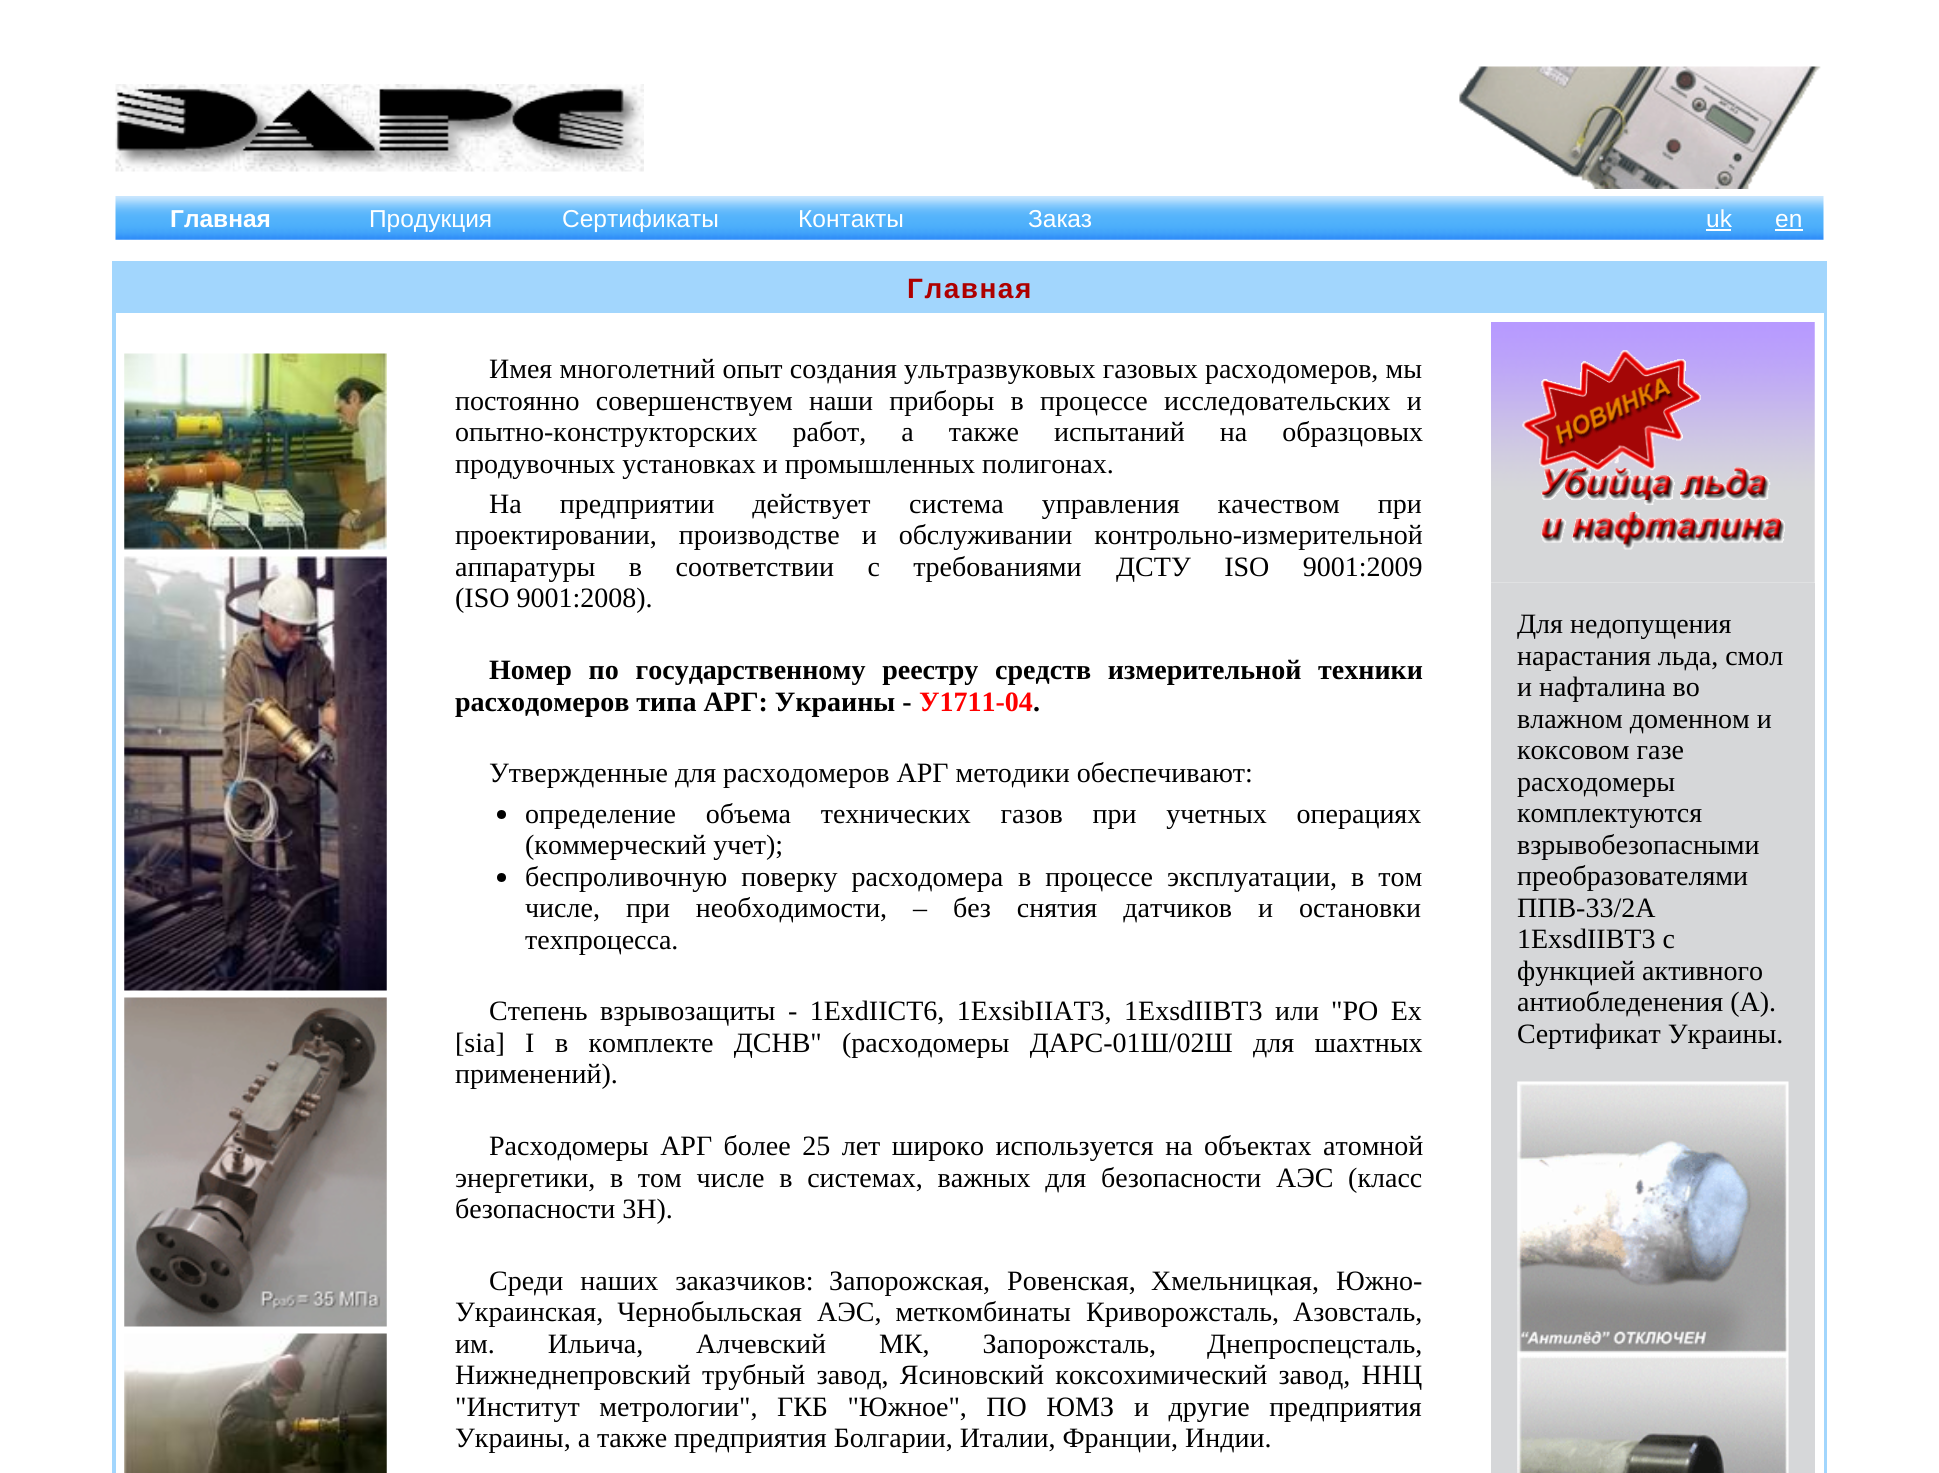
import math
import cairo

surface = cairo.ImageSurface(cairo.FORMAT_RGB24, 1939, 1473)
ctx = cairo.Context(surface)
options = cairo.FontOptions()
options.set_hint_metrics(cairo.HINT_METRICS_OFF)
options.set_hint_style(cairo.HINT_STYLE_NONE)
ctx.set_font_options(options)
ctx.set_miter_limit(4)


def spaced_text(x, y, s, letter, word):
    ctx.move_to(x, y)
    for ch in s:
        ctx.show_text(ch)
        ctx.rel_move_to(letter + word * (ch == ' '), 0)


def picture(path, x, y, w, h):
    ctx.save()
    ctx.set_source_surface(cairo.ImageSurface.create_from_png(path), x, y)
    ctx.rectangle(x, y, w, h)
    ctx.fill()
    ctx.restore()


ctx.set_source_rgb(1, 1, 1)
ctx.paint()
picture("img1.png", 115, 84, 529, 88)
picture("img2.png", 1459, 66, 362, 123)
picture("img3.png", 115, 196, 1709, 44)
ctx.select_font_face("Liberation Sans", cairo.FONT_SLANT_NORMAL, cairo.FONT_WEIGHT_BOLD)
ctx.set_font_size(24.5)
ctx.set_source_rgb(1, 1, 1)
ctx.move_to(170, 227)
ctx.show_text("Главная")
ctx.select_font_face("Liberation Sans")
ctx.move_to(369, 227)
ctx.show_text("Продукция")
ctx.move_to(562, 227)
ctx.show_text("Сертификаты")
ctx.move_to(798, 227)
ctx.show_text("Контакты")
ctx.move_to(1028, 227)
ctx.show_text("Заказ")
ctx.move_to(1706, 227)
ctx.show_text("uk")
ctx.rectangle(1706, 229, 25, 2)
ctx.fill()
ctx.move_to(1775, 227)
ctx.show_text("en")
ctx.rectangle(1775, 229, 28, 2)
ctx.fill()
ctx.set_source_rgb(0.635, 0.839, 0.992)
ctx.rectangle(112, 261, 1715, 1212)
ctx.fill()
ctx.select_font_face("Liberation Sans", cairo.FONT_SLANT_NORMAL, cairo.FONT_WEIGHT_BOLD)
ctx.set_font_size(28)
ctx.set_source_rgb(0.682, 0, 0)
spaced_text(907, 298, "Главная", 1.5, 0)
ctx.set_source_rgb(1, 1, 1)
ctx.rectangle(116, 313, 1708, 1160)
ctx.fill()
picture("img4.png", 124, 353, 263, 197)
picture("img5.png", 124, 556, 263, 435)
picture("img6.png", 124, 997, 263, 330)
picture("img7.png", 124, 1333, 263, 140)
ctx.select_font_face("Liberation Serif")
ctx.set_source_rgb(0, 0, 0)
spaced_text(489, 378, "Имея многолетний опыт создания ультразвуковых газовых расходомеров, мы", 0, 0.25)
spaced_text(455, 410, "постоянно совершенствуем наши приборы в процессе исследовательских и", 0, 9.25)
spaced_text(455, 441, "опытно-конструкторских работ, а также", 0, 28)
spaced_text(1054, 441, "испытаний на образцовых", 0, 28)
ctx.move_to(455, 473)
ctx.show_text("продувочных установках и промышленных полигонах.")
spaced_text(489, 513, "На предприятии действует", 0, 31)
spaced_text(909, 513, "система управления качеством при", 0, 31)
spaced_text(455, 544, "проектировании, производстве и обслуживании контрольно-измерительной", 0, 15)
spaced_text(455, 576, "аппаратуры в соответствии с требованиями", 0, 26.5)
spaced_text(1116, 576, "ДСТУ ISO 9001:2009", 0, 26.5)
ctx.move_to(455, 607)
ctx.show_text("(ISO 9001:2008).")
ctx.select_font_face("Liberation Serif", cairo.FONT_SLANT_NORMAL, cairo.FONT_WEIGHT_BOLD)
spaced_text(489, 679, "Номер по государственному реестру средств измерительной техники", 0, 9.75)
ctx.move_to(455, 711)
ctx.show_text("расходомеров типа АРГ: Украины -")
ctx.set_source_rgb(1, 0, 0)
ctx.move_to(919, 711)
ctx.show_text("У1711-04")
ctx.set_source_rgb(0, 0, 0)
ctx.move_to(1033, 711)
ctx.show_text(".")
ctx.select_font_face("Liberation Serif")
ctx.move_to(489, 782)
ctx.show_text("Утвержденные для расходомеров АРГ методики обеспечивают:")
ctx.new_path()
ctx.arc(501.5, 814.5, 4.5, 0, 2 * math.pi)
ctx.fill()
spaced_text(525, 823, "определениe объема технических газов при учетных операциях", 0, 22.75)
ctx.move_to(525, 854)
ctx.show_text("(коммерческий учет);")
ctx.new_path()
ctx.arc(501.5, 877.5, 4.5, 0, 2 * math.pi)
ctx.fill()
spaced_text(525, 886, "беспроливочную поверку расходомера", 0, 7)
spaced_text(1018, 886, "в процессе эксплуатации, в том", 0, 7)
spaced_text(525, 917, "числе, при необходимости, – без снятия датчиков и остановки", 0, 19)
ctx.move_to(525, 949)
ctx.show_text("техпроцесса.")
spaced_text(489, 1020, "Степень взрывозащиты - 1ExdIICT6, 1ExsibIIAT3, 1ExsdIIBT3", 0, 5.5)
ctx.move_to(1275, 1020)
ctx.show_text("или")
spaced_text(1331, 1020, "\"РО Ех", 0, 5.5)
spaced_text(455, 1052, "[sia] I", 0, 13.25)
spaced_text(555, 1052, "в комплекте ДСНВ\" (расходомеры ДАРС-01Ш/02Ш для шахтных", 0, 13.25)
ctx.move_to(455, 1083)
ctx.show_text("применений).")
spaced_text(489, 1155, "Расходомеры АРГ более 25 лет широко используется на объектах атомной", 0, 4.5)
spaced_text(455, 1187, "энергетики, в том числе в системах, важных для безопасности АЭС (класс", 0, 7.75)
ctx.move_to(455, 1218)
ctx.show_text("безопасности 3Н).")
spaced_text(489, 1290, "Среди наших заказчиков:", 0, 10)
spaced_text(829, 1290, "Запорожская, Ровенская,", 0, 10)
spaced_text(1151, 1290, "Хмельницкая, Южно-", 0, 10)
spaced_text(455, 1321, "Украинская, Чернобыльская", 0, 7)
spaced_text(817, 1321, "АЭС, меткомбинаты", 0, 7)
ctx.move_to(1086, 1321)
ctx.show_text("Криворожсталь,")
ctx.move_to(1293, 1321)
ctx.show_text("Азовсталь,")
spaced_text(455, 1353, "им. Ильича,", 0, 46)
spaced_text(696, 1353, "Алчевский МК, Запорожсталь,", 0, 46)
ctx.move_to(1207, 1353)
ctx.show_text("Днепроспецсталь,")
spaced_text(455, 1384, "Нижнеднепровский трубный завод, Ясиновский коксохимический завод, ННЦ", 0, 4.25)
spaced_text(455, 1416, "\"Институт метрологии\", ГКБ \"Южное\", ПО ЮМЗ", 0, 12.5)
spaced_text(1134, 1416, "и другие предприятия", 0, 12.5)
ctx.move_to(455, 1447)
ctx.show_text("Украины, а также предприятия Болгарии, Италии, Франции, Индии.")
picture("img8.png", 1491, 322, 324, 261)
picture("img9.png", 1522, 350, 263, 200)
ctx.set_source_rgb(0.839, 0.843, 0.851)
ctx.rectangle(1491, 583, 324, 890)
ctx.fill()
ctx.set_source_rgb(0, 0, 0)
ctx.move_to(1517, 633)
ctx.show_text("Для недопущения")
ctx.move_to(1517, 665)
ctx.show_text("нарастания льда, смол")
ctx.move_to(1517, 696)
ctx.show_text("и нафталина во")
ctx.move_to(1517, 728)
ctx.show_text("влажном доменном и")
ctx.move_to(1517, 759)
ctx.show_text("коксовом газе")
ctx.move_to(1517, 791)
ctx.show_text("расходомеры")
ctx.move_to(1517, 822)
ctx.show_text("комплектуются")
ctx.move_to(1517, 854)
ctx.show_text("взрывобезопасными")
ctx.move_to(1517, 885)
ctx.show_text("преобразователями")
ctx.move_to(1517, 917)
ctx.show_text("ППВ-33/2А")
ctx.move_to(1517, 948)
ctx.show_text("1ExsdIIBT3 с")
ctx.move_to(1517, 980)
ctx.show_text("функцией активного")
ctx.move_to(1517, 1011)
ctx.show_text("антиобледенения (А).")
ctx.move_to(1517, 1043)
ctx.show_text("Сертификат Украины.")
picture("img10.png", 1517, 1081, 272, 392)
surface.write_to_png("page.png")
